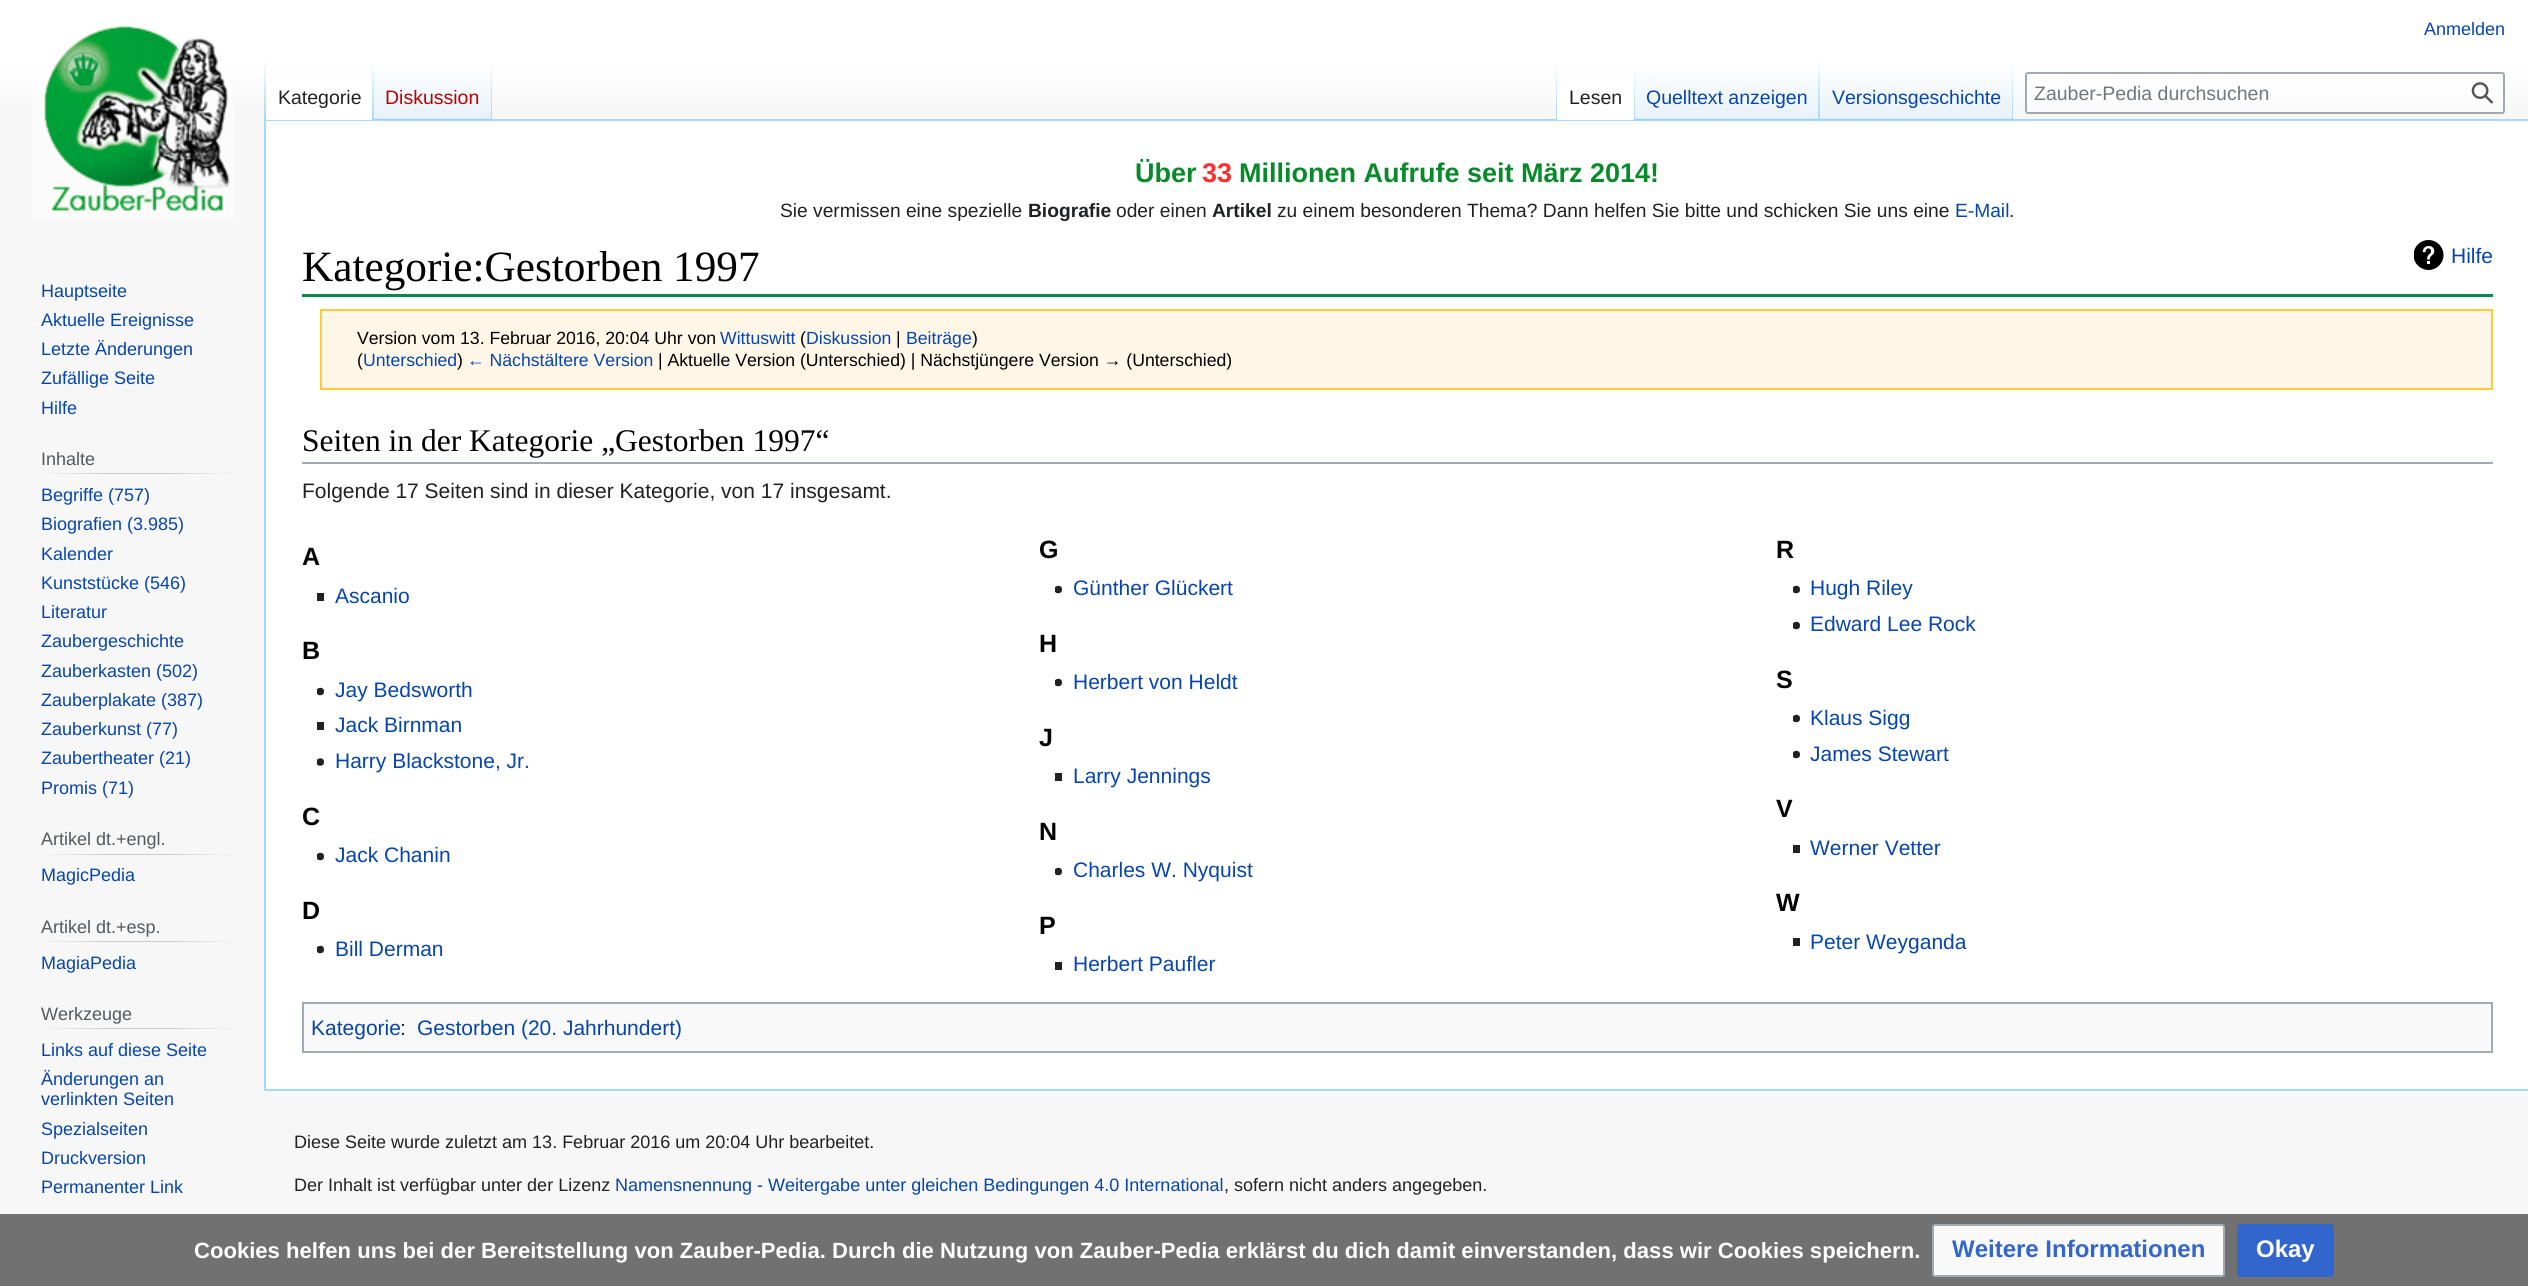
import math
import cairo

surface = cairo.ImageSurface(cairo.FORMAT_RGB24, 2528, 1286)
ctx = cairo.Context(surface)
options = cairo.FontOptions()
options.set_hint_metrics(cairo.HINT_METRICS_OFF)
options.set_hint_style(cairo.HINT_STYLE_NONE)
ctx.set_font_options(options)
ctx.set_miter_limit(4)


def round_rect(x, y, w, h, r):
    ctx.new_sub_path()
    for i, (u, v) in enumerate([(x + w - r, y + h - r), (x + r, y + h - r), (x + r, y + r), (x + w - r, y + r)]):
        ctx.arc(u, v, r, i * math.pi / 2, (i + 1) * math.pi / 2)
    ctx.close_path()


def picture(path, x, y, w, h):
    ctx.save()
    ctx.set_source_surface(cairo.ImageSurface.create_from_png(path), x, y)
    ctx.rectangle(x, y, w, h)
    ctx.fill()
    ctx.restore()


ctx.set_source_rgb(0.965, 0.965, 0.965)
ctx.paint()
gradient = cairo.LinearGradient(1265, 0, 1265, 120)
gradient.add_color_stop_rgba(0.5, 1, 1, 1, 1)
gradient.add_color_stop_rgba(1, 0.965, 0.965, 0.965, 1)
ctx.set_source(gradient)
ctx.rectangle(0, 0, 2528, 103)
ctx.fill()
ctx.select_font_face("Liberation Sans")
ctx.set_font_size(18)
ctx.set_source_rgb(0.024, 0.271, 0.678)
ctx.move_to(2424, 35)
ctx.show_text("Anmelden")
ctx.set_source_rgb(0.655, 0.843, 0.976)
ctx.rectangle(264, 119, 2264, 2)
ctx.fill()
ctx.rectangle(264, 1089, 2264, 2)
ctx.fill()
ctx.rectangle(264, 119, 2, 972)
ctx.fill()
gradient = cairo.LinearGradient(265, 60, 265, 120)
gradient.add_color_stop_rgba(0, 0.655, 0.843, 0.976, 0)
gradient.add_color_stop_rgba(1, 0.655, 0.843, 0.976, 1)
ctx.set_source(gradient)
ctx.rectangle(264, 60, 2, 60)
ctx.fill()
ctx.set_source_rgb(1, 1, 1)
ctx.rectangle(266, 77, 106, 43)
ctx.fill()
gradient = cairo.LinearGradient(373, 60, 373, 120)
gradient.add_color_stop_rgba(0, 1, 1, 1, 1)
gradient.add_color_stop_rgba(1, 0.655, 0.843, 0.976, 1)
ctx.set_source(gradient)
ctx.rectangle(372, 60, 2, 60)
ctx.fill()
ctx.set_font_size(19.5)
ctx.set_source_rgb(0.125, 0.129, 0.133)
ctx.move_to(278, 104)
ctx.show_text("Kategorie")
gradient = cairo.LinearGradient(433, 120, 433, 60)
gradient.add_color_stop_rgba(0, 0.467, 0.757, 0.965, 1)
gradient.add_color_stop_rgba(0.03, 0.91, 0.949, 0.973, 1)
gradient.add_color_stop_rgba(1, 1, 1, 1, 1)
ctx.set_source(gradient)
ctx.rectangle(374, 69, 118, 51)
ctx.fill()
gradient = cairo.LinearGradient(491, 60, 491, 120)
gradient.add_color_stop_rgba(0, 0.655, 0.843, 0.976, 0)
gradient.add_color_stop_rgba(1, 0.655, 0.843, 0.976, 1)
ctx.set_source(gradient)
ctx.rectangle(491, 60, 1, 60)
ctx.fill()
ctx.set_source_rgb(0.729, 0, 0)
ctx.move_to(385, 104)
ctx.show_text("Diskussion")
gradient = cairo.LinearGradient(1556, 60, 1556, 120)
gradient.add_color_stop_rgba(0, 0.655, 0.843, 0.976, 0)
gradient.add_color_stop_rgba(1, 0.655, 0.843, 0.976, 1)
ctx.set_source(gradient)
ctx.rectangle(1556, 60, 1, 60)
ctx.fill()
ctx.set_source_rgb(1, 1, 1)
ctx.rectangle(1557, 77, 77, 43)
ctx.fill()
gradient = cairo.LinearGradient(1634, 60, 1634, 120)
gradient.add_color_stop_rgba(0, 1, 1, 1, 1)
gradient.add_color_stop_rgba(1, 0.655, 0.843, 0.976, 1)
ctx.set_source(gradient)
ctx.rectangle(1634, 60, 1, 60)
ctx.fill()
ctx.set_source_rgb(0.125, 0.129, 0.133)
ctx.move_to(1569, 104)
ctx.show_text("Lesen")
gradient = cairo.LinearGradient(1727, 120, 1727, 60)
gradient.add_color_stop_rgba(0, 0.467, 0.757, 0.965, 1)
gradient.add_color_stop_rgba(0.03, 0.91, 0.949, 0.973, 1)
gradient.add_color_stop_rgba(1, 1, 1, 1, 1)
ctx.set_source(gradient)
ctx.rectangle(1635, 69, 185, 51)
ctx.fill()
gradient = cairo.LinearGradient(1819, 60, 1819, 120)
gradient.add_color_stop_rgba(0, 0.655, 0.843, 0.976, 0)
gradient.add_color_stop_rgba(1, 0.655, 0.843, 0.976, 1)
ctx.set_source(gradient)
ctx.rectangle(1818, 60, 2, 60)
ctx.fill()
ctx.set_source_rgb(0.024, 0.271, 0.678)
ctx.move_to(1646, 104)
ctx.show_text("Quelltext anzeigen")
gradient = cairo.LinearGradient(1916, 120, 1916, 60)
gradient.add_color_stop_rgba(0, 0.467, 0.757, 0.965, 1)
gradient.add_color_stop_rgba(0.03, 0.91, 0.949, 0.973, 1)
gradient.add_color_stop_rgba(1, 1, 1, 1, 1)
ctx.set_source(gradient)
ctx.rectangle(1820, 69, 193, 51)
ctx.fill()
gradient = cairo.LinearGradient(2012, 60, 2012, 120)
gradient.add_color_stop_rgba(0, 0.655, 0.843, 0.976, 0)
gradient.add_color_stop_rgba(1, 0.655, 0.843, 0.976, 1)
ctx.set_source(gradient)
ctx.rectangle(2012, 60, 1, 60)
ctx.fill()
ctx.set_source_rgb(0.024, 0.271, 0.678)
ctx.move_to(1832, 104)
ctx.show_text("Versionsgeschichte")
ctx.set_source_rgba(1, 1, 1, 0.5)
round_rect(2026, 73, 478, 40, 2)
ctx.fill_preserve()
ctx.set_source_rgb(0.635, 0.663, 0.694)
ctx.stroke()
ctx.set_source_rgb(0.447, 0.467, 0.49)
ctx.move_to(2034, 100)
ctx.show_text("Zauber-Pedia durchsuchen")
picture("img1.png", 2471, 82, 23, 22)
picture("img2.png", 32, 25, 202, 195)
ctx.set_font_size(18)
ctx.set_source_rgb(0.024, 0.271, 0.678)
ctx.move_to(41, 297)
ctx.show_text("Hauptseite")
ctx.move_to(41, 326)
ctx.show_text("Aktuelle Ereignisse")
ctx.move_to(41, 355)
ctx.show_text("Letzte Änderungen")
ctx.move_to(41, 384)
ctx.show_text("Zufällige Seite")
ctx.move_to(41, 414)
ctx.show_text("Hilfe")
gradient = cairo.LinearGradient(41, 473, 237, 473)
gradient.add_color_stop_rgba(0, 0.965, 0.965, 0.965, 1)
gradient.add_color_stop_rgba(0.33, 0.784, 0.8, 0.82, 1)
gradient.add_color_stop_rgba(0.66, 0.784, 0.8, 0.82, 1)
gradient.add_color_stop_rgba(1, 0.965, 0.965, 0.965, 1)
ctx.set_source(gradient)
ctx.rectangle(41, 473, 196, 1)
ctx.fill()
ctx.set_source_rgb(0.329, 0.349, 0.365)
ctx.move_to(41, 465)
ctx.show_text("Inhalte")
ctx.set_source_rgb(0.024, 0.271, 0.678)
ctx.move_to(41, 501)
ctx.show_text("Begriffe (757)")
ctx.move_to(41, 530)
ctx.show_text("Biografien (3.985)")
ctx.move_to(41, 560)
ctx.show_text("Kalender")
ctx.move_to(41, 589)
ctx.show_text("Kunststücke (546)")
ctx.move_to(41, 618)
ctx.show_text("Literatur")
ctx.move_to(41, 647)
ctx.show_text("Zaubergeschichte")
ctx.move_to(41, 677)
ctx.show_text("Zauberkasten (502)")
ctx.move_to(41, 706)
ctx.show_text("Zauberplakate (387)")
ctx.move_to(41, 735)
ctx.show_text("Zauberkunst (77)")
ctx.move_to(41, 764)
ctx.show_text("Zaubertheater (21)")
ctx.move_to(41, 794)
ctx.show_text("Promis (71)")
gradient = cairo.LinearGradient(41, 854, 237, 854)
gradient.add_color_stop_rgba(0, 0.965, 0.965, 0.965, 1)
gradient.add_color_stop_rgba(0.33, 0.784, 0.8, 0.82, 1)
gradient.add_color_stop_rgba(0.66, 0.784, 0.8, 0.82, 1)
gradient.add_color_stop_rgba(1, 0.965, 0.965, 0.965, 1)
ctx.set_source(gradient)
ctx.rectangle(41, 854, 196, 1)
ctx.fill()
ctx.set_source_rgb(0.329, 0.349, 0.365)
ctx.move_to(41, 845)
ctx.show_text("Artikel dt.+engl.")
ctx.set_source_rgb(0.024, 0.271, 0.678)
ctx.move_to(41, 881)
ctx.show_text("MagicPedia")
gradient = cairo.LinearGradient(41, 941, 237, 941)
gradient.add_color_stop_rgba(0, 0.965, 0.965, 0.965, 1)
gradient.add_color_stop_rgba(0.33, 0.784, 0.8, 0.82, 1)
gradient.add_color_stop_rgba(0.66, 0.784, 0.8, 0.82, 1)
gradient.add_color_stop_rgba(1, 0.965, 0.965, 0.965, 1)
ctx.set_source(gradient)
ctx.rectangle(41, 941, 196, 1)
ctx.fill()
ctx.set_source_rgb(0.329, 0.349, 0.365)
ctx.move_to(41, 933)
ctx.show_text("Artikel dt.+esp.")
ctx.set_source_rgb(0.024, 0.271, 0.678)
ctx.move_to(41, 969)
ctx.show_text("MagiaPedia")
gradient = cairo.LinearGradient(41, 1028, 237, 1028)
gradient.add_color_stop_rgba(0, 0.965, 0.965, 0.965, 1)
gradient.add_color_stop_rgba(0.33, 0.784, 0.8, 0.82, 1)
gradient.add_color_stop_rgba(0.66, 0.784, 0.8, 0.82, 1)
gradient.add_color_stop_rgba(1, 0.965, 0.965, 0.965, 1)
ctx.set_source(gradient)
ctx.rectangle(41, 1028, 196, 1)
ctx.fill()
ctx.set_source_rgb(0.329, 0.349, 0.365)
ctx.move_to(41, 1020)
ctx.show_text("Werkzeuge")
ctx.set_source_rgb(0.024, 0.271, 0.678)
ctx.move_to(41, 1056)
ctx.show_text("Links auf diese Seite")
ctx.move_to(41, 1085)
ctx.show_text("Änderungen an")
ctx.move_to(41, 1105)
ctx.show_text("verlinkten Seiten")
ctx.move_to(41, 1135)
ctx.show_text("Spezialseiten")
ctx.move_to(41, 1164)
ctx.show_text("Druckversion")
ctx.move_to(41, 1193)
ctx.show_text("Permanenter Link")
ctx.set_source_rgb(1, 1, 1)
ctx.rectangle(266, 121, 2262, 968)
ctx.fill()
ctx.select_font_face("Liberation Sans", cairo.FONT_SLANT_NORMAL, cairo.FONT_WEIGHT_BOLD)
ctx.set_font_size(27)
ctx.set_source_rgb(0.031, 0.541, 0.161)
ctx.move_to(1135, 182)
ctx.show_text("Über")
ctx.set_source_rgb(0.996, 0.18, 0.18)
ctx.move_to(1202, 182)
ctx.show_text("33")
ctx.set_source_rgb(0.031, 0.541, 0.161)
ctx.move_to(1239, 182)
ctx.show_text("Millionen Aufrufe seit März 2014!")
ctx.select_font_face("Liberation Sans")
ctx.set_font_size(19.2)
ctx.set_source_rgb(0.125, 0.129, 0.133)
ctx.move_to(780, 217)
ctx.show_text("Sie vermissen eine spezielle")
ctx.select_font_face("Liberation Sans", cairo.FONT_SLANT_NORMAL, cairo.FONT_WEIGHT_BOLD)
ctx.move_to(1028, 217)
ctx.show_text("Biografie")
ctx.select_font_face("Liberation Sans")
ctx.move_to(1116, 217)
ctx.show_text("oder einen")
ctx.select_font_face("Liberation Sans", cairo.FONT_SLANT_NORMAL, cairo.FONT_WEIGHT_BOLD)
ctx.move_to(1212, 217)
ctx.show_text("Artikel")
ctx.select_font_face("Liberation Sans")
ctx.move_to(1277, 217)
ctx.show_text("zu einem besonderen Thema? Dann helfen Sie bitte und schicken Sie uns eine")
ctx.set_source_rgb(0.024, 0.271, 0.678)
ctx.move_to(1955, 217)
ctx.show_text("E-Mail")
ctx.set_source_rgb(0.125, 0.129, 0.133)
ctx.move_to(2009, 217)
ctx.show_text(".")
ctx.set_source_rgb(0.031, 0.541, 0.294)
ctx.rectangle(302, 294, 2191, 3)
ctx.fill()
ctx.select_font_face("Liberation Serif")
ctx.set_font_size(43.25)
ctx.set_source_rgb(0, 0, 0)
ctx.move_to(302, 281)
ctx.show_text("Kategorie:Gestorben 1997")
picture("img3.png", 2414, 240, 30, 30)
ctx.select_font_face("Liberation Sans")
ctx.set_font_size(21)
ctx.set_source_rgb(0.024, 0.271, 0.678)
ctx.move_to(2451, 263)
ctx.show_text("Hilfe")
ctx.set_source_rgb(0.996, 0.965, 0.906)
ctx.rectangle(321, 310, 2171, 79)
ctx.fill_preserve()
ctx.set_source_rgb(1, 0.8, 0.2)
ctx.stroke()
ctx.set_font_size(17.65)
ctx.set_source_rgb(0, 0, 0)
ctx.move_to(357, 344)
ctx.show_text("Version vom 13. Februar 2016, 20:04 Uhr von")
ctx.set_source_rgb(0.024, 0.271, 0.678)
ctx.move_to(720, 344)
ctx.show_text("Wittuswitt")
ctx.set_source_rgb(0, 0, 0)
ctx.move_to(800, 344)
ctx.show_text("(")
ctx.set_source_rgb(0.024, 0.271, 0.678)
ctx.move_to(806, 344)
ctx.show_text("Diskussion")
ctx.set_source_rgb(0, 0, 0)
ctx.move_to(896, 344)
ctx.show_text("|")
ctx.set_source_rgb(0.024, 0.271, 0.678)
ctx.move_to(906, 344)
ctx.show_text("Beiträge")
ctx.set_source_rgb(0, 0, 0)
ctx.move_to(972, 344)
ctx.show_text(")")
ctx.move_to(357, 366)
ctx.show_text("(")
ctx.set_source_rgb(0.024, 0.271, 0.678)
ctx.move_to(363, 366)
ctx.show_text("Unterschied")
ctx.set_source_rgb(0, 0, 0)
ctx.move_to(457, 366)
ctx.show_text(")")
ctx.set_source_rgb(0.024, 0.271, 0.678)
ctx.move_to(467, 366)
ctx.show_text("← Nächstältere Version")
ctx.set_source_rgb(0, 0, 0)
ctx.move_to(658, 366)
ctx.show_text("| Aktuelle Version (Unterschied) | Nächstjüngere Version → (Unterschied)")
ctx.set_source_rgb(0.635, 0.663, 0.694)
ctx.rectangle(302, 462, 2191, 2)
ctx.fill()
ctx.select_font_face("Liberation Serif")
ctx.set_font_size(31.5)
ctx.set_source_rgb(0, 0, 0)
ctx.move_to(302, 451)
ctx.show_text("Seiten in der Kategorie „Gestorben 1997“")
ctx.select_font_face("Liberation Sans")
ctx.set_font_size(21)
ctx.set_source_rgb(0.125, 0.129, 0.133)
ctx.move_to(302, 498)
ctx.show_text("Folgende 17 Seiten sind in dieser Kategorie, von 17 insgesamt.")
ctx.select_font_face("Liberation Sans", cairo.FONT_SLANT_NORMAL, cairo.FONT_WEIGHT_BOLD)
ctx.set_font_size(25)
ctx.set_source_rgb(0, 0, 0)
ctx.move_to(302, 565)
ctx.show_text("A")
ctx.set_source_rgb(0.125, 0.129, 0.133)
ctx.rectangle(317, 593, 7, 8)
ctx.fill()
ctx.select_font_face("Liberation Sans")
ctx.set_font_size(21)
ctx.set_source_rgb(0.024, 0.271, 0.678)
ctx.move_to(335, 603)
ctx.show_text("Ascanio")
ctx.select_font_face("Liberation Sans", cairo.FONT_SLANT_NORMAL, cairo.FONT_WEIGHT_BOLD)
ctx.set_font_size(25)
ctx.set_source_rgb(0, 0, 0)
ctx.move_to(1039, 558)
ctx.show_text("G")
picture("img4.png", 1055, 585, 7, 9)
ctx.select_font_face("Liberation Sans")
ctx.set_font_size(21)
ctx.set_source_rgb(0.024, 0.271, 0.678)
ctx.move_to(1073, 595)
ctx.show_text("Günther Glückert")
ctx.select_font_face("Liberation Sans", cairo.FONT_SLANT_NORMAL, cairo.FONT_WEIGHT_BOLD)
ctx.set_font_size(25)
ctx.set_source_rgb(0, 0, 0)
ctx.move_to(1776, 558)
ctx.show_text("R")
picture("img4.png", 1793, 585, 7, 9)
ctx.select_font_face("Liberation Sans")
ctx.set_font_size(21)
ctx.set_source_rgb(0.024, 0.271, 0.678)
ctx.move_to(1810, 595)
ctx.show_text("Hugh Riley")
picture("img4.png", 1793, 621, 7, 9)
ctx.move_to(1810, 631)
ctx.show_text("Edward Lee Rock")
ctx.select_font_face("Liberation Sans", cairo.FONT_SLANT_NORMAL, cairo.FONT_WEIGHT_BOLD)
ctx.set_font_size(25)
ctx.set_source_rgb(0, 0, 0)
ctx.move_to(302, 659)
ctx.show_text("B")
picture("img4.png", 317, 687, 7, 9)
ctx.select_font_face("Liberation Sans")
ctx.set_font_size(21)
ctx.set_source_rgb(0.024, 0.271, 0.678)
ctx.move_to(335, 697)
ctx.show_text("Jay Bedsworth")
ctx.set_source_rgb(0.125, 0.129, 0.133)
ctx.rectangle(317, 722, 7, 8)
ctx.fill()
ctx.set_source_rgb(0.024, 0.271, 0.678)
ctx.move_to(335, 732)
ctx.show_text("Jack Birnman")
picture("img5.png", 317, 758, 7, 8)
ctx.move_to(335, 768)
ctx.show_text("Harry Blackstone, Jr.")
ctx.select_font_face("Liberation Sans", cairo.FONT_SLANT_NORMAL, cairo.FONT_WEIGHT_BOLD)
ctx.set_font_size(25)
ctx.set_source_rgb(0, 0, 0)
ctx.move_to(1039, 652)
ctx.show_text("H")
picture("img4.png", 1055, 678, 7, 9)
ctx.select_font_face("Liberation Sans")
ctx.set_font_size(21)
ctx.set_source_rgb(0.024, 0.271, 0.678)
ctx.move_to(1073, 689)
ctx.show_text("Herbert von Heldt")
ctx.select_font_face("Liberation Sans", cairo.FONT_SLANT_NORMAL, cairo.FONT_WEIGHT_BOLD)
ctx.set_font_size(25)
ctx.set_source_rgb(0, 0, 0)
ctx.move_to(1776, 688)
ctx.show_text("S")
picture("img4.png", 1793, 714, 7, 9)
ctx.select_font_face("Liberation Sans")
ctx.set_font_size(21)
ctx.set_source_rgb(0.024, 0.271, 0.678)
ctx.move_to(1810, 725)
ctx.show_text("Klaus Sigg")
picture("img4.png", 1793, 750, 7, 9)
ctx.move_to(1810, 761)
ctx.show_text("James Stewart")
ctx.select_font_face("Liberation Sans", cairo.FONT_SLANT_NORMAL, cairo.FONT_WEIGHT_BOLD)
ctx.set_font_size(25)
ctx.set_source_rgb(0, 0, 0)
ctx.move_to(1039, 746)
ctx.show_text("J")
ctx.set_source_rgb(0.125, 0.129, 0.133)
ctx.rectangle(1055, 773, 7, 8)
ctx.fill()
ctx.select_font_face("Liberation Sans")
ctx.set_font_size(21)
ctx.set_source_rgb(0.024, 0.271, 0.678)
ctx.move_to(1073, 783)
ctx.show_text("Larry Jennings")
ctx.select_font_face("Liberation Sans", cairo.FONT_SLANT_NORMAL, cairo.FONT_WEIGHT_BOLD)
ctx.set_font_size(25)
ctx.set_source_rgb(0, 0, 0)
ctx.move_to(302, 825)
ctx.show_text("C")
picture("img4.png", 317, 852, 7, 9)
ctx.select_font_face("Liberation Sans")
ctx.set_font_size(21)
ctx.set_source_rgb(0.024, 0.271, 0.678)
ctx.move_to(335, 862)
ctx.show_text("Jack Chanin")
ctx.select_font_face("Liberation Sans", cairo.FONT_SLANT_NORMAL, cairo.FONT_WEIGHT_BOLD)
ctx.set_font_size(25)
ctx.set_source_rgb(0, 0, 0)
ctx.move_to(1039, 840)
ctx.show_text("N")
picture("img4.png", 1055, 867, 7, 9)
ctx.select_font_face("Liberation Sans")
ctx.set_font_size(21)
ctx.set_source_rgb(0.024, 0.271, 0.678)
ctx.move_to(1073, 877)
ctx.show_text("Charles W. Nyquist")
ctx.select_font_face("Liberation Sans", cairo.FONT_SLANT_NORMAL, cairo.FONT_WEIGHT_BOLD)
ctx.set_font_size(25)
ctx.set_source_rgb(0, 0, 0)
ctx.move_to(1776, 817)
ctx.show_text("V")
ctx.set_source_rgb(0.125, 0.129, 0.133)
ctx.rectangle(1793, 845, 7, 8)
ctx.fill()
ctx.select_font_face("Liberation Sans")
ctx.set_font_size(21)
ctx.set_source_rgb(0.024, 0.271, 0.678)
ctx.move_to(1810, 855)
ctx.show_text("Werner Vetter")
ctx.select_font_face("Liberation Sans", cairo.FONT_SLANT_NORMAL, cairo.FONT_WEIGHT_BOLD)
ctx.set_font_size(25)
ctx.set_source_rgb(0, 0, 0)
ctx.move_to(302, 919)
ctx.show_text("D")
picture("img4.png", 317, 945, 7, 9)
ctx.select_font_face("Liberation Sans")
ctx.set_font_size(21)
ctx.set_source_rgb(0.024, 0.271, 0.678)
ctx.move_to(335, 956)
ctx.show_text("Bill Derman")
ctx.select_font_face("Liberation Sans", cairo.FONT_SLANT_NORMAL, cairo.FONT_WEIGHT_BOLD)
ctx.set_font_size(25)
ctx.set_source_rgb(0, 0, 0)
ctx.move_to(1039, 934)
ctx.show_text("P")
ctx.set_source_rgb(0.125, 0.129, 0.133)
ctx.rectangle(1055, 962, 7, 8)
ctx.fill()
ctx.select_font_face("Liberation Sans")
ctx.set_font_size(21)
ctx.set_source_rgb(0.024, 0.271, 0.678)
ctx.move_to(1073, 971)
ctx.show_text("Herbert Paufler")
ctx.select_font_face("Liberation Sans", cairo.FONT_SLANT_NORMAL, cairo.FONT_WEIGHT_BOLD)
ctx.set_font_size(25)
ctx.set_source_rgb(0, 0, 0)
ctx.move_to(1776, 911)
ctx.show_text("W")
ctx.set_source_rgb(0.125, 0.129, 0.133)
ctx.rectangle(1793, 938, 7, 8)
ctx.fill()
ctx.select_font_face("Liberation Sans")
ctx.set_font_size(21)
ctx.set_source_rgb(0.024, 0.271, 0.678)
ctx.move_to(1810, 949)
ctx.show_text("Peter Weyganda")
ctx.set_source_rgb(0.973, 0.976, 0.98)
ctx.rectangle(303, 1003, 2189, 49)
ctx.fill_preserve()
ctx.set_source_rgb(0.635, 0.663, 0.694)
ctx.stroke()
ctx.set_source_rgb(0.024, 0.271, 0.678)
ctx.move_to(311, 1035)
ctx.show_text("Kategorie")
ctx.set_source_rgb(0.125, 0.129, 0.133)
ctx.move_to(400, 1035)
ctx.show_text(":")
ctx.set_source_rgb(0.024, 0.271, 0.678)
ctx.move_to(417, 1035)
ctx.show_text("Gestorben (20. Jahrhundert)")
ctx.set_font_size(18)
ctx.set_source_rgb(0.125, 0.129, 0.133)
ctx.move_to(294, 1148)
ctx.show_text("Diese Seite wurde zuletzt am 13. Februar 2016 um 20:04 Uhr bearbeitet.")
ctx.move_to(294, 1191)
ctx.show_text("Der Inhalt ist verfügbar unter der Lizenz")
ctx.set_source_rgb(0.024, 0.271, 0.678)
ctx.move_to(615, 1191)
ctx.show_text("Namensnennung - Weitergabe unter gleichen Bedingungen 4.0 International")
ctx.set_source_rgb(0.125, 0.129, 0.133)
ctx.move_to(1224, 1191)
ctx.show_text(", sofern nicht anders angegeben.")
ctx.set_source_rgba(0.353, 0.353, 0.353, 0.85)
ctx.rectangle(0, 1214, 2528, 72)
ctx.fill()
ctx.select_font_face("Liberation Sans", cairo.FONT_SLANT_NORMAL, cairo.FONT_WEIGHT_BOLD)
ctx.set_font_size(22.08)
ctx.set_source_rgb(1, 1, 1)
ctx.move_to(194, 1258)
ctx.show_text("Cookies helfen uns bei der Bereitstellung von Zauber-Pedia. Durch die Nutzung von Zauber-Pedia erklärst du dich damit einverstanden, dass wir Cookies speichern.")
ctx.set_source_rgb(0.973, 0.976, 0.98)
round_rect(1933, 1225, 291, 51, 2)
ctx.fill_preserve()
ctx.set_source_rgb(0.635, 0.663, 0.694)
ctx.stroke()
ctx.set_font_size(24)
ctx.set_source_rgb(0.2, 0.4, 0.8)
ctx.move_to(1952, 1257)
ctx.show_text("Weitere Informationen")
round_rect(2238, 1225, 95, 51, 2)
ctx.fill_preserve()
ctx.stroke()
ctx.set_source_rgb(1, 1, 1)
ctx.move_to(2256, 1257)
ctx.show_text("Okay")
surface.write_to_png("page.png")
